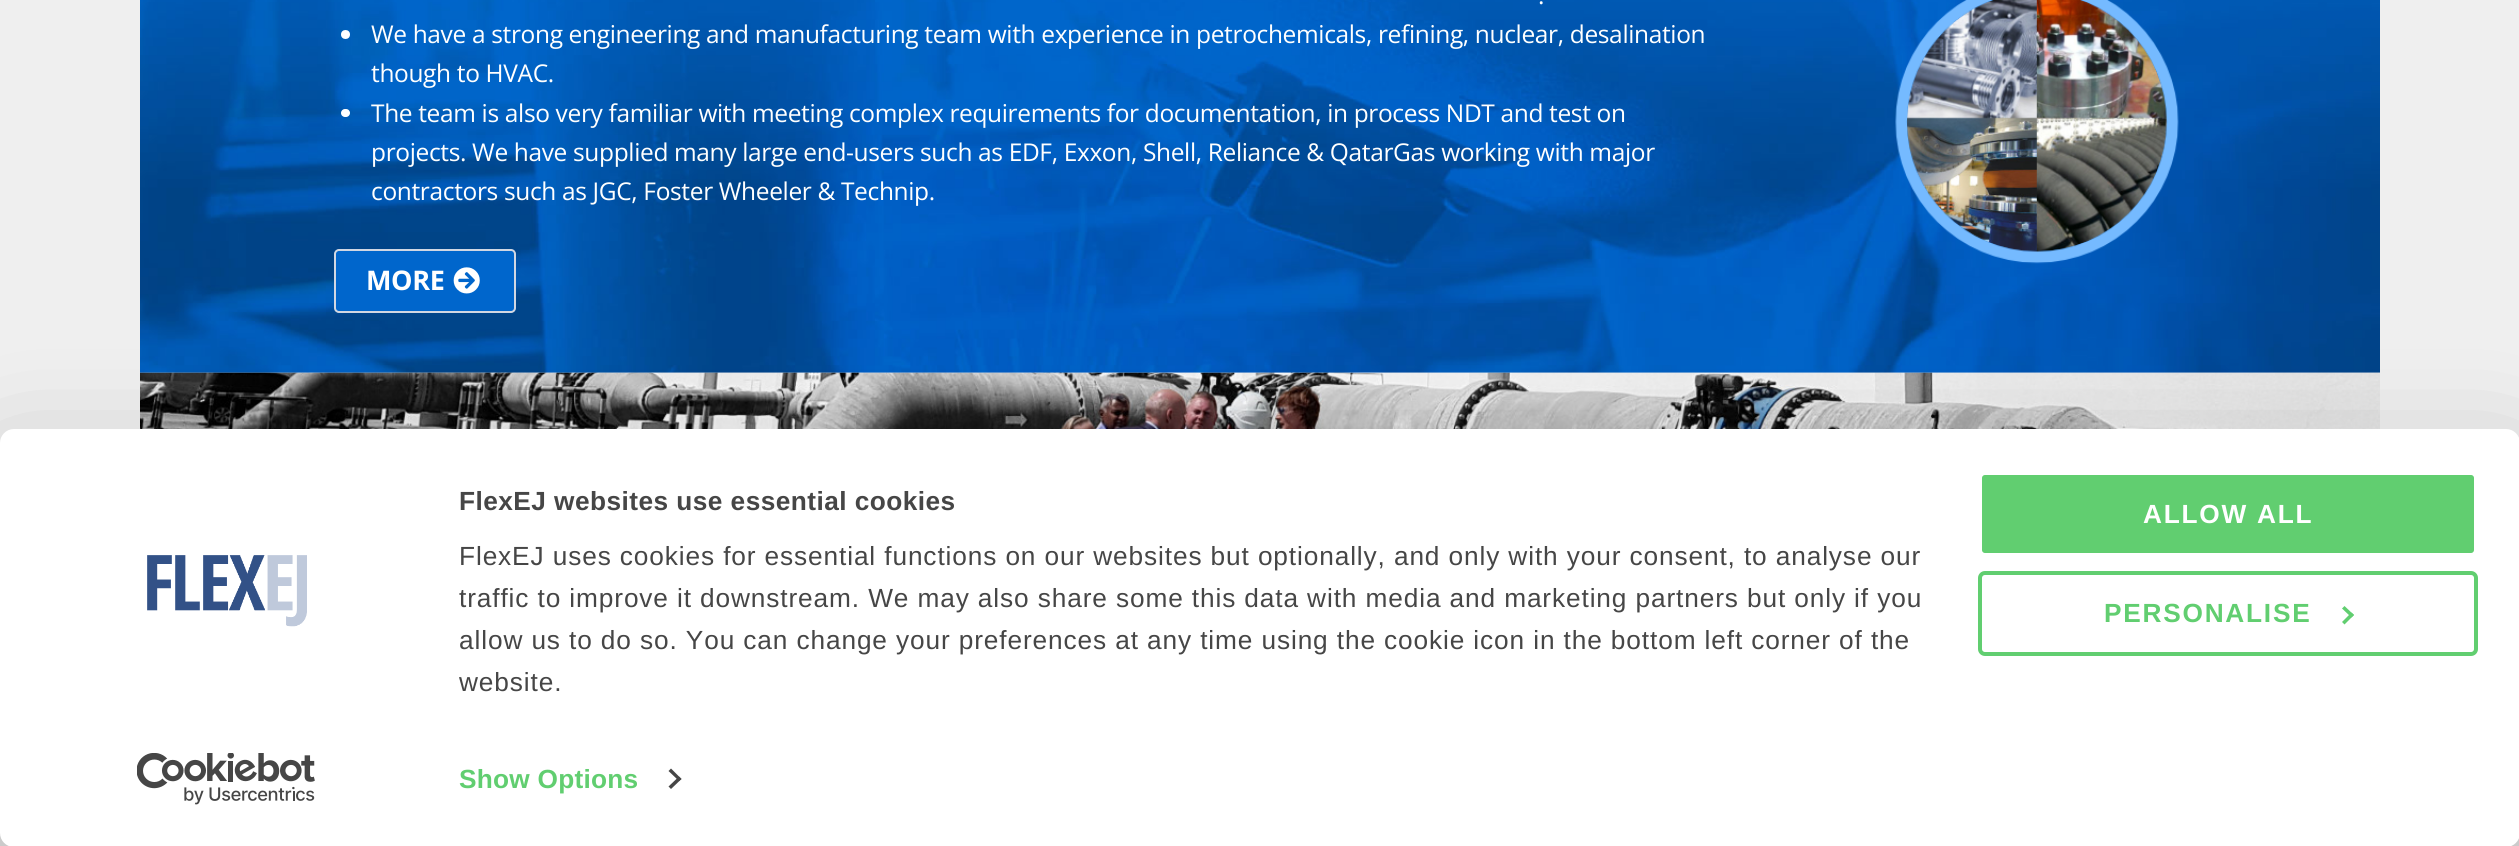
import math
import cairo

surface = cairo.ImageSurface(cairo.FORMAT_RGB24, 2519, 846)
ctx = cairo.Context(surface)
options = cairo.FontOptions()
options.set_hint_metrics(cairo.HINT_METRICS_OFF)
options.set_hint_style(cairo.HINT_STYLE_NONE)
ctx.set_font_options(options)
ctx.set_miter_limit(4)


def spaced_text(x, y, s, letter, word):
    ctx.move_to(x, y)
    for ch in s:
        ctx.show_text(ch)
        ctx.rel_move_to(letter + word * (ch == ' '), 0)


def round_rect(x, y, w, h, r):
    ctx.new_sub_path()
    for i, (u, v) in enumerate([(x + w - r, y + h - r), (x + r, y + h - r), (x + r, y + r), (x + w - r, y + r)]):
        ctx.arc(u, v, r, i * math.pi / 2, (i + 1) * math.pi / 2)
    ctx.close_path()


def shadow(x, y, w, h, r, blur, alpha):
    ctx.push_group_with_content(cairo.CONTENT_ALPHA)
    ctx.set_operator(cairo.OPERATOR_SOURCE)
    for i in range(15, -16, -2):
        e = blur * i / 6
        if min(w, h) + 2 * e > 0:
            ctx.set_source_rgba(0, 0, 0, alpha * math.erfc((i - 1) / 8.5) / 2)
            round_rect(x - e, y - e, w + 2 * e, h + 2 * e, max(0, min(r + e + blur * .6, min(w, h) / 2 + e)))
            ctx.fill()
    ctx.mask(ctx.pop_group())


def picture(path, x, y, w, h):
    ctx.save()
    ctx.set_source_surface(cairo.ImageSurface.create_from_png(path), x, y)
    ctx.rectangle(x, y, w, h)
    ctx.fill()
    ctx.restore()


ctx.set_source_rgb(0.937, 0.937, 0.937)
ctx.paint()
picture("img1.png", 140, 0, 2240, 373)
picture("img2.png", 1895, 0, 284, 264)
ctx.select_font_face("Open Sans")
ctx.set_font_size(24.5)
ctx.set_source_rgb(1, 1, 1)
spaced_text(1538, 4, ".", -0.35, 0)
ctx.new_path()
ctx.arc(345.5, 34.5, 4.5, 0, 2 * math.pi)
ctx.fill()
spaced_text(371, 43, "We have a strong engineering and manufacturing team with experience in petrochemicals, refining, nuclear, desalination", -0.35, 0)
spaced_text(371, 82, "though to HVAC.", -0.35, 0)
round_rect(341, 109, 9, 8, 4)
ctx.fill()
spaced_text(371, 122, "The team is also very familiar with meeting complex requirements for documentation, in process NDT and test on", -0.35, 0)
spaced_text(371, 161, "projects. We have supplied many large end-users such as EDF, Exxon, Shell, Reliance & QatarGas working with major", -0.35, 0)
spaced_text(371, 200, "contractors such as JGC, Foster Wheeler & Technip.", -0.35, 0)
ctx.set_source_rgb(0, 0.4, 0.8)
round_rect(335, 250, 180, 62, 4)
ctx.fill_preserve()
ctx.set_source_rgb(0.82, 0.843, 0.89)
ctx.stroke()
ctx.select_font_face("Open Sans", cairo.FONT_SLANT_NORMAL, cairo.FONT_WEIGHT_BOLD)
ctx.set_font_size(27)
ctx.set_source_rgb(1, 1, 1)
spaced_text(366, 290, "MORE", -0.35, 0)
picture("img3.png", 453, 267, 27, 27)
picture("img4.png", 140, 372, 2240, 57)
ctx.set_source_rgb(0, 0, 0)
shadow(0, 481, 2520, 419, 14, 61, 0.3)
ctx.set_source_rgb(1, 1, 1)
round_rect(0, 429, 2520, 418, 14)
ctx.fill()
picture("img5.png", 147, 555, 160, 72)
picture("img6.png", 137, 753, 178, 52)
ctx.select_font_face("Liberation Sans", cairo.FONT_SLANT_NORMAL, cairo.FONT_WEIGHT_BOLD)
ctx.set_font_size(26.25)
ctx.set_source_rgb(0.275, 0.275, 0.275)
spaced_text(459, 510, "FlexEJ websites use essential cookies", 0.45, 0)
ctx.select_font_face("Liberation Sans")
spaced_text(459, 565, "FlexEJ uses cookies for essential functions on our websites but optionally, and only with your consent, to analyse our", 0.88, 0)
spaced_text(459, 607, "traffic to improve it downstream. We may also share some this data with media and marketing partners but only if you", 0.88, 0)
spaced_text(459, 649, "allow us to do so. You can change your preferences at any time using the cookie icon in the bottom left corner of the", 0.88, 0)
spaced_text(459, 691, "website.", 0.88, 0)
ctx.select_font_face("Liberation Sans", cairo.FONT_SLANT_NORMAL, cairo.FONT_WEIGHT_BOLD)
ctx.set_source_rgb(0.38, 0.808, 0.439)
spaced_text(459, 788, "Show Options", 0.25, 0)
ctx.set_source_rgb(0.275, 0.275, 0.275)
ctx.new_path()
ctx.move_to(671, 768.5)
ctx.line_to(681.5, 779)
ctx.line_to(679, 781)
ctx.line_to(668.5, 771)
ctx.close_path()
ctx.fill()
ctx.new_path()
ctx.move_to(679, 776.5)
ctx.line_to(681.5, 779)
ctx.line_to(671, 789)
ctx.line_to(668.5, 786.5)
ctx.close_path()
ctx.fill()
ctx.set_source_rgb(0.38, 0.808, 0.439)
round_rect(1980, 473, 496, 82, 5)
ctx.fill_preserve()
ctx.set_source_rgb(1, 1, 1)
ctx.set_line_width(4)
ctx.stroke()
spaced_text(2143, 523, "ALLOW ALL", 1.75, 0)
round_rect(1980, 573, 496, 81, 5)
ctx.set_source_rgb(0.38, 0.808, 0.439)
ctx.stroke()
spaced_text(2104, 622, "PERSONALISE", 1.75, 0)
ctx.new_path()
ctx.move_to(2344.5, 606)
ctx.line_to(2354, 615)
ctx.line_to(2351.5, 617.5)
ctx.line_to(2342, 608.5)
ctx.close_path()
ctx.fill()
ctx.new_path()
ctx.move_to(2351.5, 612.5)
ctx.line_to(2354, 615)
ctx.line_to(2344.5, 624.5)
ctx.line_to(2342, 622)
ctx.close_path()
ctx.fill()
surface.write_to_png("page.png")
